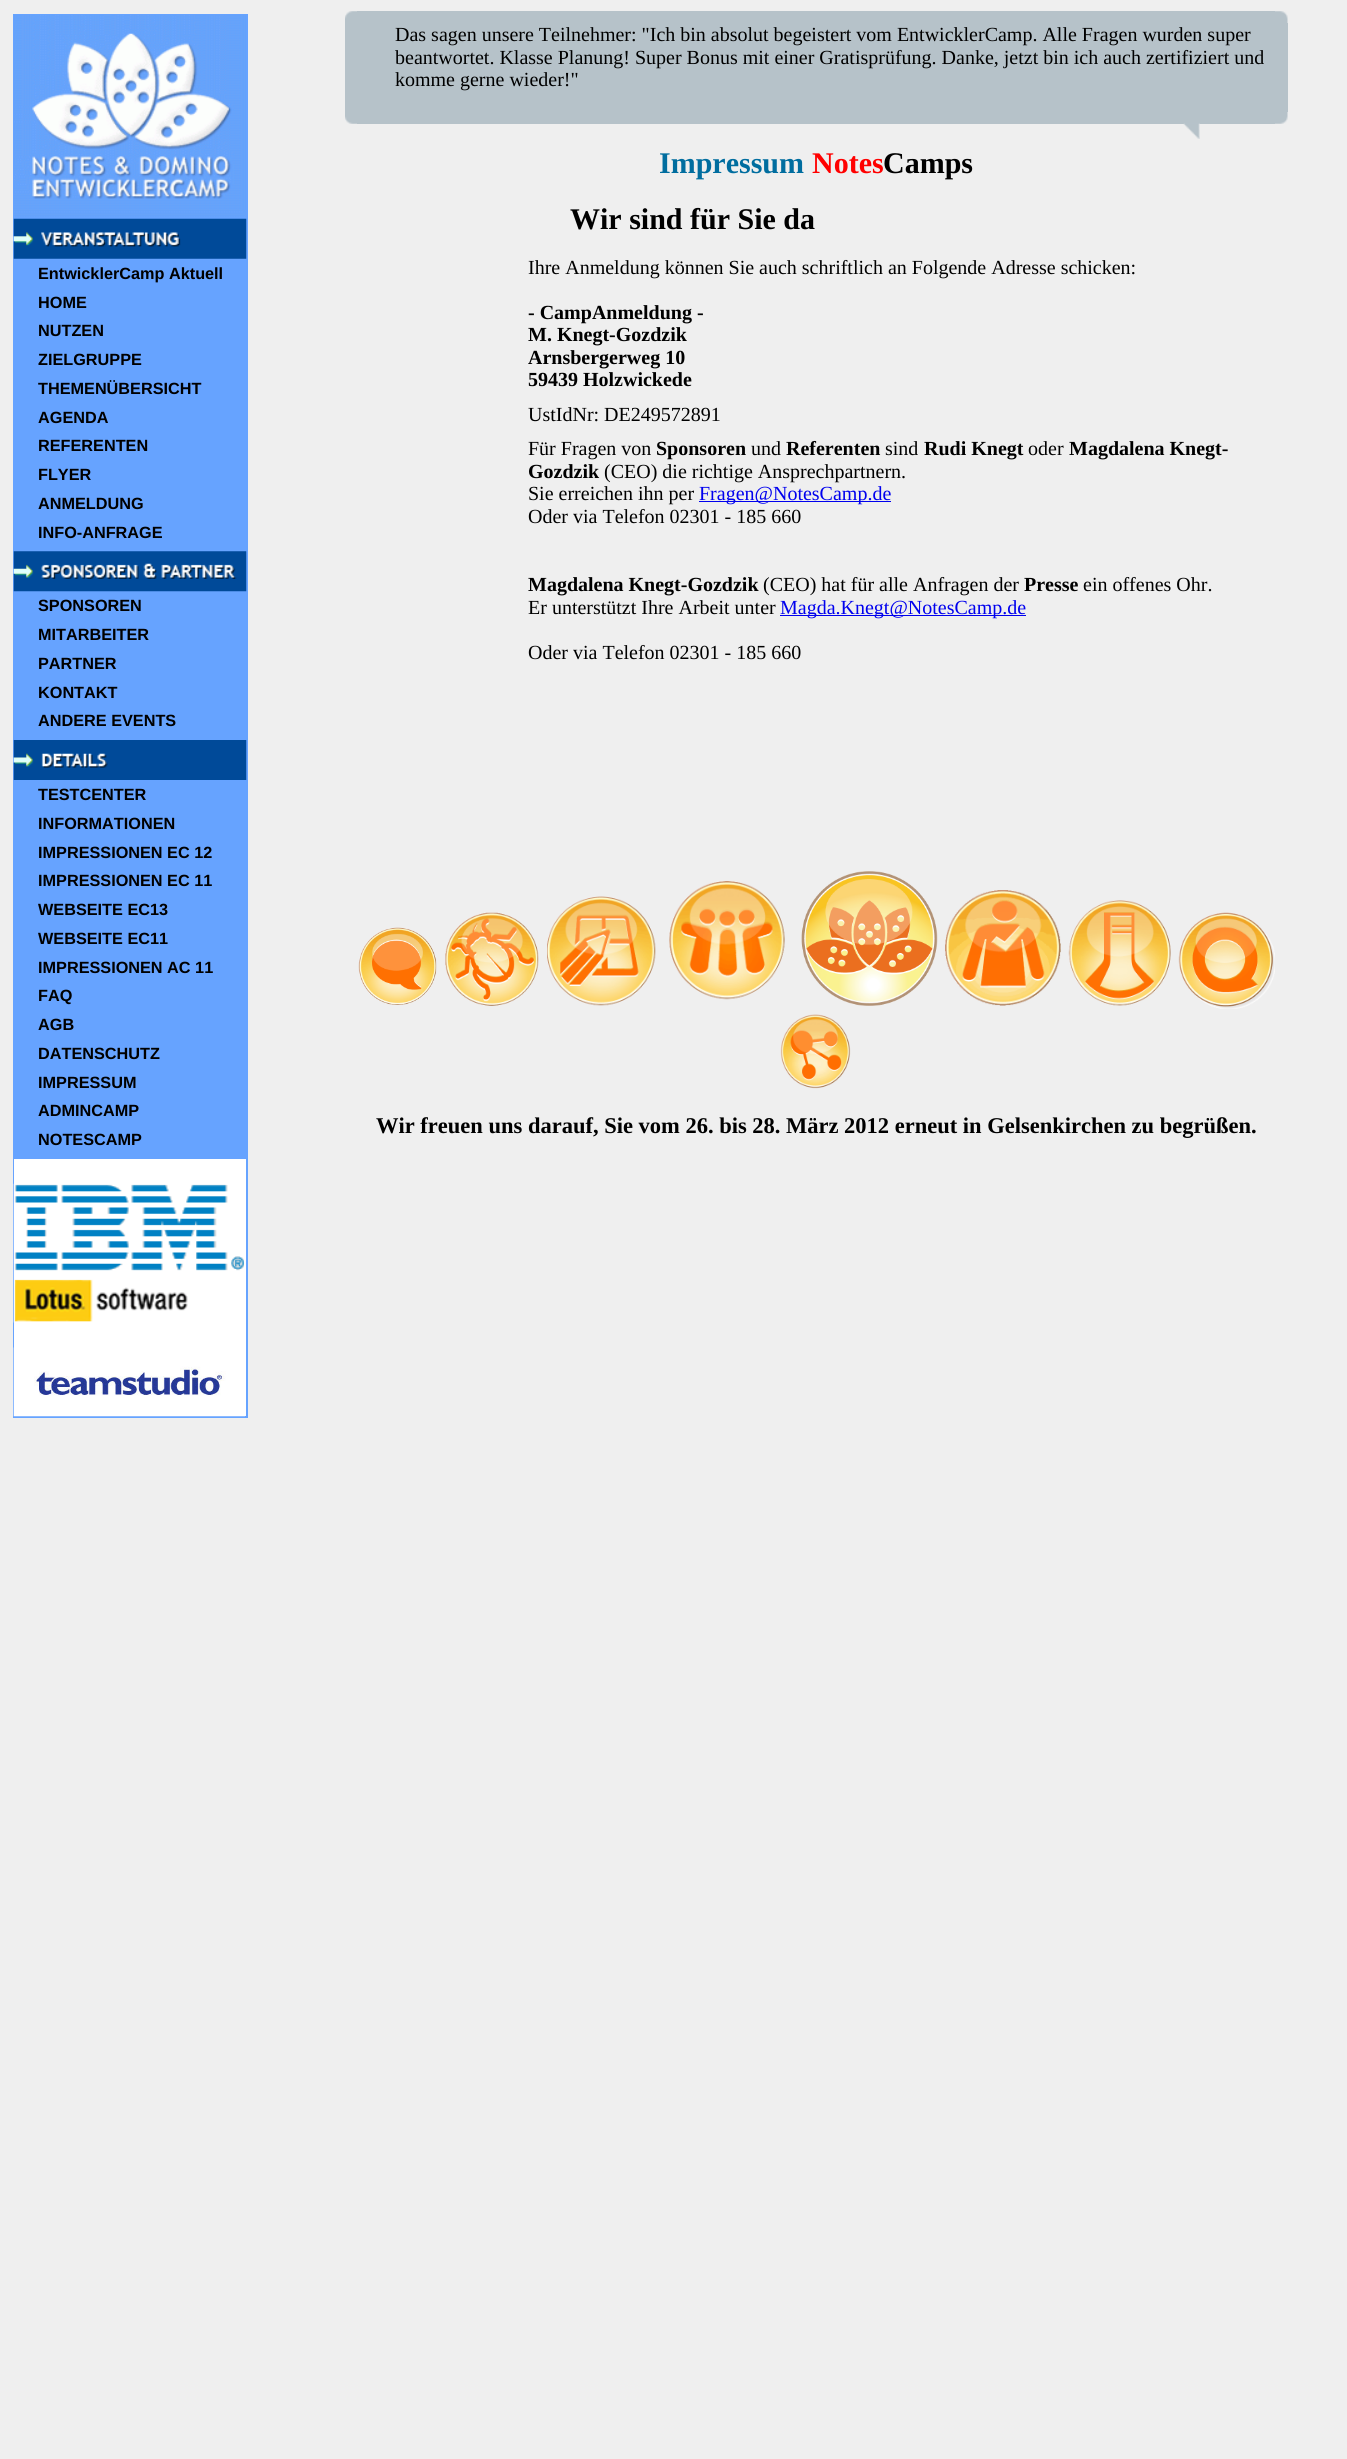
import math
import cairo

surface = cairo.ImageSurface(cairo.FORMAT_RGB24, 1347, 2459)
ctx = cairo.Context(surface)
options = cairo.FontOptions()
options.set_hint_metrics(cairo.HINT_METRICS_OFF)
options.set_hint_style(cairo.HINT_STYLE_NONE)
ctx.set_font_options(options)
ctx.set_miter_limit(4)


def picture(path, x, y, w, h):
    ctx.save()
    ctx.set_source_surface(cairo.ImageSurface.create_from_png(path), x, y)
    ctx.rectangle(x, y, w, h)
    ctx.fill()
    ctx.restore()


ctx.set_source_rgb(0.937, 0.937, 0.937)
ctx.paint()
ctx.set_source_rgb(0.4, 0.639, 1)
ctx.rectangle(13, 14, 235, 1404)
ctx.fill()
picture("img1.png", 14, 15, 232, 202)
picture("img2.png", 13, 218, 234, 41)
ctx.select_font_face("Liberation Sans", cairo.FONT_SLANT_NORMAL, cairo.FONT_WEIGHT_BOLD)
ctx.set_font_size(16.25)
ctx.set_source_rgb(0, 0, 0)
ctx.move_to(38, 279)
ctx.show_text("EntwicklerCamp Aktuell")
ctx.move_to(38, 308)
ctx.show_text("HOME")
ctx.move_to(38, 336)
ctx.show_text("NUTZEN")
ctx.move_to(38, 365)
ctx.show_text("ZIELGRUPPE")
ctx.move_to(38, 394)
ctx.show_text("THEMENÜBERSICHT")
ctx.move_to(38, 423)
ctx.show_text("AGENDA")
ctx.move_to(38, 451)
ctx.show_text("REFERENTEN")
ctx.move_to(38, 480)
ctx.show_text("FLYER")
ctx.move_to(38, 509)
ctx.show_text("ANMELDUNG")
ctx.move_to(38, 538)
ctx.show_text("INFO-ANFRAGE")
picture("img3.png", 13, 551, 234, 41)
ctx.move_to(38, 611)
ctx.show_text("SPONSOREN")
ctx.move_to(38, 640)
ctx.show_text("MITARBEITER")
ctx.move_to(38, 669)
ctx.show_text("PARTNER")
ctx.move_to(38, 698)
ctx.show_text("KONTAKT")
ctx.move_to(38, 726)
ctx.show_text("ANDERE EVENTS")
picture("img4.png", 13, 740, 234, 40)
ctx.move_to(38, 800)
ctx.show_text("TESTCENTER")
ctx.move_to(38, 829)
ctx.show_text("INFORMATIONEN")
ctx.move_to(38, 858)
ctx.show_text("IMPRESSIONEN EC 12")
ctx.move_to(38, 886)
ctx.show_text("IMPRESSIONEN EC 11")
ctx.move_to(38, 915)
ctx.show_text("WEBSEITE EC13")
ctx.move_to(38, 944)
ctx.show_text("WEBSEITE EC11")
ctx.move_to(38, 973)
ctx.show_text("IMPRESSIONEN AC 11")
ctx.move_to(38, 1001)
ctx.show_text("FAQ")
ctx.move_to(38, 1030)
ctx.show_text("AGB")
ctx.move_to(38, 1059)
ctx.show_text("DATENSCHUTZ")
ctx.move_to(38, 1088)
ctx.show_text("IMPRESSUM")
ctx.move_to(38, 1116)
ctx.show_text("ADMINCAMP")
ctx.move_to(38, 1145)
ctx.show_text("NOTESCAMP")
ctx.set_source_rgb(1, 1, 1)
ctx.rectangle(14, 1159, 232, 257)
ctx.fill()
picture("img5.png", 13, 1183, 231, 140)
picture("img6.png", 13, 1347, 232, 70)
picture("img7.png", 345, 11, 12, 12)
ctx.set_source_rgb(0.714, 0.761, 0.788)
ctx.rectangle(357, 11, 918, 12)
ctx.fill()
picture("img8.png", 1275, 11, 13, 12)
ctx.rectangle(345, 23, 943, 89)
ctx.fill()
ctx.select_font_face("Liberation Serif")
ctx.set_font_size(20)
ctx.set_source_rgb(0, 0, 0)
ctx.move_to(395, 41)
ctx.show_text("Das sagen unsere Teilnehmer: \"Ich bin absolut begeistert vom EntwicklerCamp. Alle Fragen wurden super")
ctx.move_to(395, 64)
ctx.show_text("beantwortet. Klasse Planung! Super Bonus mit einer Gratisprüfung. Danke, jetzt bin ich auch zertifiziert und")
ctx.move_to(395, 86)
ctx.show_text("komme gerne wieder!\"")
picture("img9.png", 345, 112, 12, 12)
ctx.set_source_rgb(0.714, 0.761, 0.788)
ctx.rectangle(357, 112, 918, 12)
ctx.fill()
picture("img10.png", 1275, 112, 13, 12)
picture("img11.png", 1183, 123, 17, 16)
ctx.select_font_face("Liberation Serif", cairo.FONT_SLANT_NORMAL, cairo.FONT_WEIGHT_BOLD)
ctx.set_font_size(30)
ctx.set_source_rgb(0, 0.427, 0.624)
ctx.move_to(659, 173)
ctx.show_text("Impressum")
ctx.set_source_rgb(1, 0, 0)
ctx.move_to(812, 173)
ctx.show_text("Notes")
ctx.set_source_rgb(0, 0, 0)
ctx.move_to(883, 173)
ctx.show_text("Camps")
ctx.move_to(570, 229)
ctx.show_text("Wir sind für Sie da")
ctx.select_font_face("Liberation Serif")
ctx.set_font_size(20)
ctx.move_to(528, 274)
ctx.show_text("Ihre Anmeldung können Sie auch schriftlich an Folgende Adresse schicken:")
ctx.select_font_face("Liberation Serif", cairo.FONT_SLANT_NORMAL, cairo.FONT_WEIGHT_BOLD)
ctx.move_to(528, 319)
ctx.show_text("- CampAnmeldung -")
ctx.move_to(528, 341)
ctx.show_text("M. Knegt-Gozdzik")
ctx.move_to(528, 364)
ctx.show_text("Arnsbergerweg 10")
ctx.move_to(528, 386)
ctx.show_text("59439 Holzwickede")
ctx.select_font_face("Liberation Serif")
ctx.move_to(528, 421)
ctx.show_text("UstIdNr: DE249572891")
ctx.move_to(528, 455)
ctx.show_text("Für Fragen von")
ctx.select_font_face("Liberation Serif", cairo.FONT_SLANT_NORMAL, cairo.FONT_WEIGHT_BOLD)
ctx.move_to(656, 455)
ctx.show_text("Sponsoren")
ctx.select_font_face("Liberation Serif")
ctx.move_to(751, 455)
ctx.show_text("und")
ctx.select_font_face("Liberation Serif", cairo.FONT_SLANT_NORMAL, cairo.FONT_WEIGHT_BOLD)
ctx.move_to(786, 455)
ctx.show_text("Referenten")
ctx.select_font_face("Liberation Serif")
ctx.move_to(885, 455)
ctx.show_text("sind")
ctx.select_font_face("Liberation Serif", cairo.FONT_SLANT_NORMAL, cairo.FONT_WEIGHT_BOLD)
ctx.move_to(924, 455)
ctx.show_text("Rudi Knegt")
ctx.select_font_face("Liberation Serif")
ctx.move_to(1028, 455)
ctx.show_text("oder")
ctx.select_font_face("Liberation Serif", cairo.FONT_SLANT_NORMAL, cairo.FONT_WEIGHT_BOLD)
ctx.move_to(1069, 455)
ctx.show_text("Magdalena Knegt-")
ctx.move_to(528, 478)
ctx.show_text("Gozdzik")
ctx.select_font_face("Liberation Serif")
ctx.move_to(604, 478)
ctx.show_text("(CEO) die richtige Ansprechpartnern.")
ctx.move_to(528, 500)
ctx.show_text("Sie erreichen ihn per")
ctx.set_source_rgb(0, 0, 0.933)
ctx.rectangle(699, 501, 192, 1)
ctx.fill()
ctx.move_to(699, 500)
ctx.show_text("Fragen@NotesCamp.de")
ctx.set_source_rgb(0, 0, 0)
ctx.move_to(528, 523)
ctx.show_text("Oder via Telefon 02301 - 185 660")
ctx.select_font_face("Liberation Serif", cairo.FONT_SLANT_NORMAL, cairo.FONT_WEIGHT_BOLD)
ctx.move_to(528, 591)
ctx.show_text("Magdalena Knegt-Gozdzik")
ctx.select_font_face("Liberation Serif")
ctx.move_to(763, 591)
ctx.show_text("(CEO) hat für alle Anfragen der")
ctx.select_font_face("Liberation Serif", cairo.FONT_SLANT_NORMAL, cairo.FONT_WEIGHT_BOLD)
ctx.move_to(1024, 591)
ctx.show_text("Presse")
ctx.select_font_face("Liberation Serif")
ctx.move_to(1083, 591)
ctx.show_text("ein offenes Ohr.")
ctx.move_to(528, 614)
ctx.show_text("Er unterstützt Ihre Arbeit unter")
ctx.set_source_rgb(0, 0, 0.933)
ctx.rectangle(780, 615, 246, 1)
ctx.fill()
ctx.move_to(780, 614)
ctx.show_text("Magda.Knegt@NotesCamp.de")
ctx.set_source_rgb(0, 0, 0)
ctx.move_to(528, 659)
ctx.show_text("Oder via Telefon 02301 - 185 660")
picture("img12.png", 358, 927, 79, 78)
picture("img13.png", 445, 912, 94, 94)
picture("img14.png", 547, 896, 109, 110)
picture("img15.png", 669, 881, 116, 119)
picture("img16.png", 801, 871, 137, 135)
picture("img17.png", 945, 890, 116, 116)
picture("img18.png", 1068, 900, 103, 106)
picture("img19.png", 1178, 912, 97, 97)
picture("img20.png", 780, 1014, 71, 75)
ctx.select_font_face("Liberation Serif", cairo.FONT_SLANT_NORMAL, cairo.FONT_WEIGHT_BOLD)
ctx.set_font_size(22.5)
ctx.move_to(376, 1133)
ctx.show_text("Wir freuen uns darauf, Sie vom 26. bis 28. März 2012 erneut in Gelsenkirchen zu begrüßen.")
surface.write_to_png("page.png")
